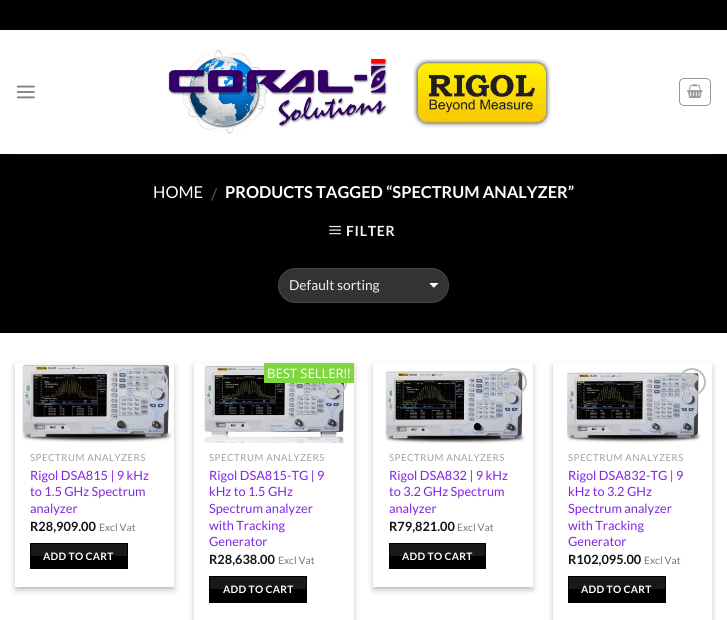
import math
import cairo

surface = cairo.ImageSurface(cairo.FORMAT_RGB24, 727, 620)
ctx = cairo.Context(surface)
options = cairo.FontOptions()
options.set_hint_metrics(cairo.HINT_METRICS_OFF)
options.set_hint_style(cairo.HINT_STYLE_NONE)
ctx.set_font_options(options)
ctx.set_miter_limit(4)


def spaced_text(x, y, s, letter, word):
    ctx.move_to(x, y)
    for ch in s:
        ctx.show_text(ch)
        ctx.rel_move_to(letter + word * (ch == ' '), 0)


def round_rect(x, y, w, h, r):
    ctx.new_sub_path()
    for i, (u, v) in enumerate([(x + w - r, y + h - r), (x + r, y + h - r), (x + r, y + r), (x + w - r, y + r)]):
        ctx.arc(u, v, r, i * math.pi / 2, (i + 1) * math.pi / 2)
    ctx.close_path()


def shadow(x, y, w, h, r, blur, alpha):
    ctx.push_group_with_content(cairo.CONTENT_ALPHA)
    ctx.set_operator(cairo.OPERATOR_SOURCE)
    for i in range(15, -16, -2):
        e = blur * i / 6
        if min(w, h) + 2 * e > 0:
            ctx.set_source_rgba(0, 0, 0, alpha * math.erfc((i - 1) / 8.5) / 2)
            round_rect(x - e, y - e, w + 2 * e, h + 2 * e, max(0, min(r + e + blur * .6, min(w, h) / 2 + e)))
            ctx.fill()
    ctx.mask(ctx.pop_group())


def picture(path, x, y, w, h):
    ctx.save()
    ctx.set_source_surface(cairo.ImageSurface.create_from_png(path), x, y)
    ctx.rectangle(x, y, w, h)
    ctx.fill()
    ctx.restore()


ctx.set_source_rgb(1, 1, 1)
ctx.paint()
ctx.set_source_rgb(0, 0, 0)
ctx.rectangle(0, 0, 727, 30)
ctx.fill()
picture("img1.png", 16, 85, 19, 14)
picture("img2.png", 168, 50, 383, 84)
round_rect(679.5, 78.5, 31, 27, 4.5)
ctx.set_source_rgb(0.6, 0.6, 0.6)
ctx.set_line_width(1)
ctx.stroke()
picture("img3.png", 687, 84, 16, 14)
ctx.set_source_rgb(0, 0, 0)
ctx.rectangle(0, 154, 727, 179)
ctx.fill()
ctx.set_source_rgb(0.047, 0.047, 0.047)
ctx.rectangle(15, 154, 697, 1)
ctx.fill()
ctx.select_font_face("Lato")
ctx.set_font_size(16.4)
ctx.set_source_rgb(1, 1, 1)
ctx.move_to(153, 198)
ctx.show_text("HOME")
ctx.set_source_rgb(0.349, 0.349, 0.349)
ctx.move_to(211, 200)
ctx.show_text("/")
ctx.select_font_face("Lato", cairo.FONT_SLANT_NORMAL, cairo.FONT_WEIGHT_BOLD)
ctx.set_source_rgb(1, 1, 1)
ctx.move_to(225, 198)
ctx.show_text("PRODUCTS TAGGED “SPECTRUM ANALYZER”")
picture("img4.png", 329, 225, 12, 10)
ctx.set_font_size(14)
ctx.set_source_rgb(0.945, 0.945, 0.945)
spaced_text(346, 236, "FILTER", 0.75, 0)
ctx.set_source_rgb(0.2, 0.2, 0.2)
round_rect(278, 268, 171, 35, 17.5)
ctx.fill()
picture("img5.png", 429, 283, 10, 5)
round_rect(278.5, 268.5, 170, 34, 17)
ctx.set_source_rgba(1, 1, 1, 0.09)
ctx.stroke()
ctx.select_font_face("Lato")
ctx.set_font_size(13.75)
ctx.set_source_rgb(0.945, 0.945, 0.945)
ctx.move_to(289, 290)
ctx.show_text("Default sorting")
ctx.save()
ctx.set_fill_rule(cairo.FILL_RULE_EVEN_ODD)
ctx.new_path()
ctx.move_to(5, 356)
ctx.line_to(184, 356)
ctx.line_to(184, 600)
ctx.line_to(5, 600)
ctx.close_path()
ctx.move_to(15, 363)
ctx.line_to(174, 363)
ctx.line_to(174, 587)
ctx.line_to(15, 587)
ctx.close_path()
ctx.clip()
ctx.set_source_rgb(0, 0, 0)
shadow(15, 366, 159, 224, 0, 3, 0.23)
ctx.restore()
ctx.save()
ctx.rectangle(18, 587, 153, 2)
ctx.clip()
ctx.set_source_rgb(0, 0, 0)
shadow(19, 370, 151, 216, 0, 3, 0.16)
ctx.restore()
picture("img6.png", 22, 363, 152, 80)
round_rect(142, 369, 25, 26, 12.5)
ctx.set_source_rgb(0.753, 0.753, 0.753)
ctx.set_line_width(2)
ctx.stroke()
picture("img7.png", 148, 374, 13, 12)
ctx.set_font_size(9.6)
ctx.set_source_rgb(0.627, 0.627, 0.627)
spaced_text(30, 461, "SPECTRUM ANALYZERS", 0.5, 0)
ctx.set_font_size(12.75)
ctx.set_source_rgb(0.51, 0.141, 0.89)
ctx.move_to(30, 480)
ctx.show_text("Rigol DSA815 | 9 kHz")
ctx.move_to(30, 496)
ctx.show_text("to 1.5 GHz Spectrum")
ctx.move_to(30, 513)
ctx.show_text("analyzer")
ctx.select_font_face("Lato", cairo.FONT_SLANT_NORMAL, cairo.FONT_WEIGHT_BOLD)
ctx.set_source_rgb(0.067, 0.067, 0.067)
ctx.move_to(30, 531)
ctx.show_text("R28,909.00")
ctx.select_font_face("Lato")
ctx.set_font_size(10.25)
ctx.set_source_rgb(0.467, 0.467, 0.467)
ctx.move_to(99, 531)
ctx.show_text("Excl Vat")
ctx.set_source_rgb(0, 0, 0)
ctx.rectangle(30, 543, 98, 26)
ctx.fill()
ctx.set_source_rgba(1, 1, 1, 0.1)
ctx.rectangle(31, 544, 96, 12)
ctx.fill()
ctx.select_font_face("Lato", cairo.FONT_SLANT_NORMAL, cairo.FONT_WEIGHT_BOLD)
ctx.set_source_rgb(1, 1, 1)
spaced_text(43, 560, "ADD TO CART", 0.25, 0)
ctx.save()
ctx.set_fill_rule(cairo.FILL_RULE_EVEN_ODD)
ctx.new_path()
ctx.move_to(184, 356)
ctx.line_to(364, 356)
ctx.line_to(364, 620)
ctx.line_to(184, 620)
ctx.close_path()
ctx.move_to(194, 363)
ctx.line_to(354, 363)
ctx.line_to(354, 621)
ctx.line_to(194, 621)
ctx.close_path()
ctx.clip()
ctx.set_source_rgb(0, 0, 0)
shadow(194, 366, 160, 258, 0, 3, 0.23)
ctx.restore()
picture("img8.png", 204, 363, 144, 80)
round_rect(321, 369, 25, 26, 12.5)
ctx.set_source_rgb(0.753, 0.753, 0.753)
ctx.stroke()
ctx.set_source_rgb(0.506, 0.843, 0.259)
ctx.rectangle(264, 363, 90, 20)
ctx.fill()
ctx.select_font_face("Open Sans")
ctx.set_font_size(13)
ctx.set_source_rgb(1, 1, 1)
ctx.move_to(267, 378)
ctx.show_text("BEST SELLER!!")
picture("img9.png", 330, 383, 7, 3)
ctx.select_font_face("Lato")
ctx.set_font_size(9.6)
ctx.set_source_rgb(0.627, 0.627, 0.627)
spaced_text(209, 461, "SPECTRUM ANALYZERS", 0.5, 0)
ctx.set_font_size(12.75)
ctx.set_source_rgb(0.51, 0.141, 0.89)
ctx.move_to(209, 480)
ctx.show_text("Rigol DSA815-TG | 9")
ctx.move_to(209, 496)
ctx.show_text("kHz to 1.5 GHz")
ctx.move_to(209, 513)
ctx.show_text("Spectrum analyzer")
ctx.move_to(209, 530)
ctx.show_text("with Tracking")
ctx.move_to(209, 546)
ctx.show_text("Generator")
ctx.select_font_face("Lato", cairo.FONT_SLANT_NORMAL, cairo.FONT_WEIGHT_BOLD)
ctx.set_source_rgb(0.067, 0.067, 0.067)
ctx.move_to(209, 564)
ctx.show_text("R28,638.00")
ctx.select_font_face("Lato")
ctx.set_font_size(10.25)
ctx.set_source_rgb(0.467, 0.467, 0.467)
ctx.move_to(278, 564)
ctx.show_text("Excl Vat")
ctx.set_source_rgb(0, 0, 0)
ctx.rectangle(209, 576, 98, 27)
ctx.fill()
ctx.set_source_rgba(1, 1, 1, 0.1)
ctx.rectangle(210, 577, 96, 12)
ctx.fill()
ctx.select_font_face("Lato", cairo.FONT_SLANT_NORMAL, cairo.FONT_WEIGHT_BOLD)
ctx.set_source_rgb(1, 1, 1)
spaced_text(223, 593, "ADD TO CART", 0.25, 0)
ctx.save()
ctx.set_fill_rule(cairo.FILL_RULE_EVEN_ODD)
ctx.new_path()
ctx.move_to(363, 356)
ctx.line_to(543, 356)
ctx.line_to(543, 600)
ctx.line_to(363, 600)
ctx.close_path()
ctx.move_to(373, 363)
ctx.line_to(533, 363)
ctx.line_to(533, 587)
ctx.line_to(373, 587)
ctx.close_path()
ctx.clip()
ctx.set_source_rgb(0, 0, 0)
shadow(373, 366, 160, 224, 0, 3, 0.23)
ctx.restore()
ctx.save()
ctx.rectangle(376, 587, 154, 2)
ctx.clip()
ctx.set_source_rgb(0, 0, 0)
shadow(377, 370, 152, 216, 0, 3, 0.16)
ctx.restore()
picture("img11.png", 384, 371, 142, 72)
ctx.arc(513, 382, 13, 0, 2 * math.pi)
ctx.set_source_rgb(0.753, 0.753, 0.753)
ctx.stroke()
picture("img10.png", 506, 374, 14, 12)
ctx.select_font_face("Lato")
ctx.set_font_size(9.6)
ctx.set_source_rgb(0.627, 0.627, 0.627)
spaced_text(389, 461, "SPECTRUM ANALYZERS", 0.5, 0)
ctx.set_font_size(12.75)
ctx.set_source_rgb(0.51, 0.141, 0.89)
ctx.move_to(389, 480)
ctx.show_text("Rigol DSA832 | 9 kHz")
ctx.move_to(389, 496)
ctx.show_text("to 3.2 GHz Spectrum")
ctx.move_to(389, 513)
ctx.show_text("analyzer")
ctx.select_font_face("Lato", cairo.FONT_SLANT_NORMAL, cairo.FONT_WEIGHT_BOLD)
ctx.set_source_rgb(0.067, 0.067, 0.067)
ctx.move_to(389, 531)
ctx.show_text("R79,821.00")
ctx.select_font_face("Lato")
ctx.set_font_size(10.25)
ctx.set_source_rgb(0.467, 0.467, 0.467)
ctx.move_to(457, 531)
ctx.show_text("Excl Vat")
ctx.set_source_rgb(0, 0, 0)
ctx.rectangle(389, 543, 97, 26)
ctx.fill()
ctx.set_source_rgba(1, 1, 1, 0.1)
ctx.rectangle(390, 544, 95, 12)
ctx.fill()
ctx.select_font_face("Lato", cairo.FONT_SLANT_NORMAL, cairo.FONT_WEIGHT_BOLD)
ctx.set_source_rgb(1, 1, 1)
spaced_text(402, 560, "ADD TO CART", 0.25, 0)
ctx.save()
ctx.set_fill_rule(cairo.FILL_RULE_EVEN_ODD)
ctx.new_path()
ctx.move_to(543, 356)
ctx.line_to(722, 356)
ctx.line_to(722, 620)
ctx.line_to(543, 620)
ctx.close_path()
ctx.move_to(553, 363)
ctx.line_to(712, 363)
ctx.line_to(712, 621)
ctx.line_to(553, 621)
ctx.close_path()
ctx.clip()
ctx.set_source_rgb(0, 0, 0)
shadow(553, 366, 159, 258, 0, 3, 0.23)
ctx.restore()
picture("img13.png", 566, 371, 135, 72)
ctx.arc(692, 382, 13, 0, 2 * math.pi)
ctx.set_source_rgb(0.753, 0.753, 0.753)
ctx.stroke()
picture("img12.png", 685, 374, 13, 12)
ctx.select_font_face("Lato")
ctx.set_font_size(9.6)
ctx.set_source_rgb(0.627, 0.627, 0.627)
spaced_text(568, 461, "SPECTRUM ANALYZERS", 0.5, 0)
ctx.set_font_size(12.75)
ctx.set_source_rgb(0.51, 0.141, 0.89)
ctx.move_to(568, 480)
ctx.show_text("Rigol DSA832-TG | 9")
ctx.move_to(568, 496)
ctx.show_text("kHz to 3.2 GHz")
ctx.move_to(568, 513)
ctx.show_text("Spectrum analyzer")
ctx.move_to(568, 530)
ctx.show_text("with Tracking")
ctx.move_to(568, 546)
ctx.show_text("Generator")
ctx.select_font_face("Lato", cairo.FONT_SLANT_NORMAL, cairo.FONT_WEIGHT_BOLD)
ctx.set_source_rgb(0.067, 0.067, 0.067)
ctx.move_to(568, 564)
ctx.show_text("R102,095.00")
ctx.select_font_face("Lato")
ctx.set_font_size(10.25)
ctx.set_source_rgb(0.467, 0.467, 0.467)
ctx.move_to(644, 564)
ctx.show_text("Excl Vat")
ctx.set_source_rgb(0, 0, 0)
ctx.rectangle(568, 576, 98, 27)
ctx.fill()
ctx.set_source_rgba(1, 1, 1, 0.1)
ctx.rectangle(569, 577, 96, 12)
ctx.fill()
ctx.select_font_face("Lato", cairo.FONT_SLANT_NORMAL, cairo.FONT_WEIGHT_BOLD)
ctx.set_source_rgb(1, 1, 1)
spaced_text(581, 593, "ADD TO CART", 0.25, 0)
surface.write_to_png("page.png")
